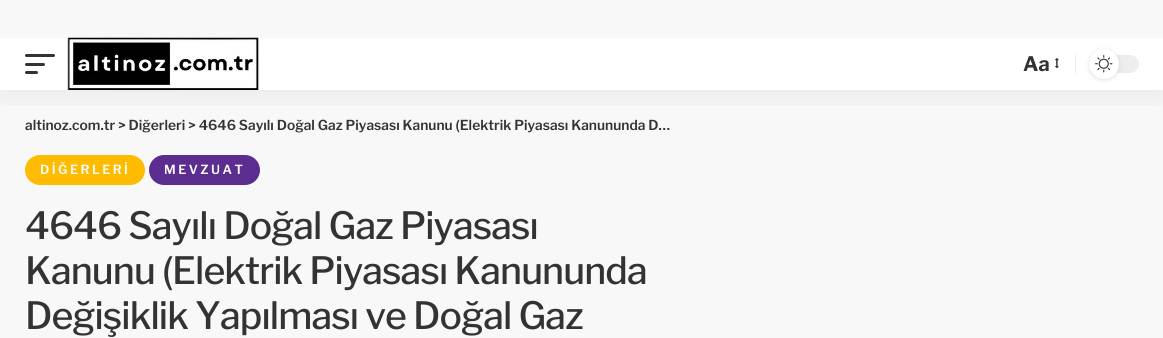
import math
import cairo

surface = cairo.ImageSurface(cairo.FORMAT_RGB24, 1163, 338)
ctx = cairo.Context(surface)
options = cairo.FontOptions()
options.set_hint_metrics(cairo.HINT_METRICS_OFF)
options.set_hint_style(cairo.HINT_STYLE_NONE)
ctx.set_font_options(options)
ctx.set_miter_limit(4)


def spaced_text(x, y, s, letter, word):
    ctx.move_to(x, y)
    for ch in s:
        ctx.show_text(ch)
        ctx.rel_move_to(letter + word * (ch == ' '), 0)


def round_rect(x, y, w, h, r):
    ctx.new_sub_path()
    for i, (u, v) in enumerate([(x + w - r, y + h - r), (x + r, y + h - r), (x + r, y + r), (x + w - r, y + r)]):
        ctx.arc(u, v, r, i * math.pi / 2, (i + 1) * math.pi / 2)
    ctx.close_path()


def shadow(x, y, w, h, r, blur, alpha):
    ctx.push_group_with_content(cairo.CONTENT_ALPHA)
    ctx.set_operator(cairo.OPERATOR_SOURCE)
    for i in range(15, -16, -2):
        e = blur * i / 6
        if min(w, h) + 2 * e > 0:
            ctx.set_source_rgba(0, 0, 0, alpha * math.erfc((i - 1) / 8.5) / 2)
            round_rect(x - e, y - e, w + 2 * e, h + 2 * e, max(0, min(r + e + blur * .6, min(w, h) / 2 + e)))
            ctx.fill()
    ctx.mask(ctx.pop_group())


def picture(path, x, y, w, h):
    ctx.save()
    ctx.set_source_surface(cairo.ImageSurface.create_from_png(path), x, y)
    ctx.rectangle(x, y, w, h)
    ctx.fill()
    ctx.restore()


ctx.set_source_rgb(1, 1, 1)
ctx.paint()
ctx.set_source_rgb(0.969, 0.969, 0.969)
ctx.rectangle(0, 0, 1163, 38)
ctx.fill()
ctx.rectangle(0, 90, 1163, 248)
ctx.fill()
ctx.save()
ctx.rectangle(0, 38, 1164, 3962)
ctx.clip()
ctx.rectangle(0, 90, 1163, 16)
ctx.clip()
ctx.set_source_rgb(0, 0, 0)
shadow(0, 43, 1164, 52, 0, 19, 0.07)
ctx.restore()
ctx.set_source_rgb(0.2, 0.2, 0.2)
round_rect(25, 54, 30, 3, 1.5)
ctx.fill()
round_rect(25, 63, 20, 3, 1.5)
ctx.fill()
round_rect(25, 71, 13, 3, 1.5)
ctx.fill()
picture("img1.png", 67, 37, 192, 53)
ctx.select_font_face("Libre Franklin", cairo.FONT_SLANT_NORMAL, cairo.FONT_WEIGHT_BOLD)
ctx.set_font_size(20)
ctx.move_to(1023, 71)
ctx.show_text("Aa")
picture("img2.png", 1055, 58, 4, 11)
ctx.set_source_rgb(0.918, 0.918, 0.918)
ctx.rectangle(1075, 55, 1, 18)
ctx.fill()
ctx.set_source_rgb(0.929, 0.929, 0.929)
round_rect(1089, 55, 50, 18, 9)
ctx.fill()
ctx.set_source_rgb(0, 0, 0)
shadow(1089, 50, 30, 30, 15, 2.5, 0.12)
ctx.set_source_rgb(1, 1, 1)
ctx.arc(1104, 64, 15, 0, 2 * math.pi)
ctx.fill()
picture("img3.png", 1095, 55, 18, 18)
ctx.select_font_face("Libre Franklin SemiBold")
ctx.set_font_size(13.75)
ctx.set_source_rgb(0.2, 0.2, 0.2)
ctx.move_to(25, 130)
ctx.show_text("altinoz.com.tr > Diğerleri > 4646 Sayılı Doğal Gaz Piyasası Kanunu (Elektrik Piyasası Kanununda D…")
ctx.set_source_rgb(1, 0.733, 0)
round_rect(25, 155, 120, 30, 15)
ctx.fill()
ctx.set_font_size(12.5)
ctx.set_source_rgb(1, 1, 1)
spaced_text(40, 174, "DİĞERLERİ", 2.5, 0)
ctx.set_source_rgb(0.361, 0.176, 0.569)
round_rect(149, 155, 111, 30, 15)
ctx.fill()
ctx.set_source_rgb(1, 1, 1)
spaced_text(164, 174, "MEVZUAT", 2.5, 0)
ctx.select_font_face("Libre Franklin Medium")
ctx.set_font_size(37.5)
ctx.set_source_rgb(0.2, 0.2, 0.2)
spaced_text(25, 239, "4646 Sayılı Doğal Gaz Piyasası", -0.9, 0)
spaced_text(25, 284, "Kanunu (Elektrik Piyasası Kanununda", -0.9, 0)
spaced_text(25, 329, "Değişiklik Yapılması ve Doğal Gaz", -0.9, 0)
surface.write_to_png("page.png")
